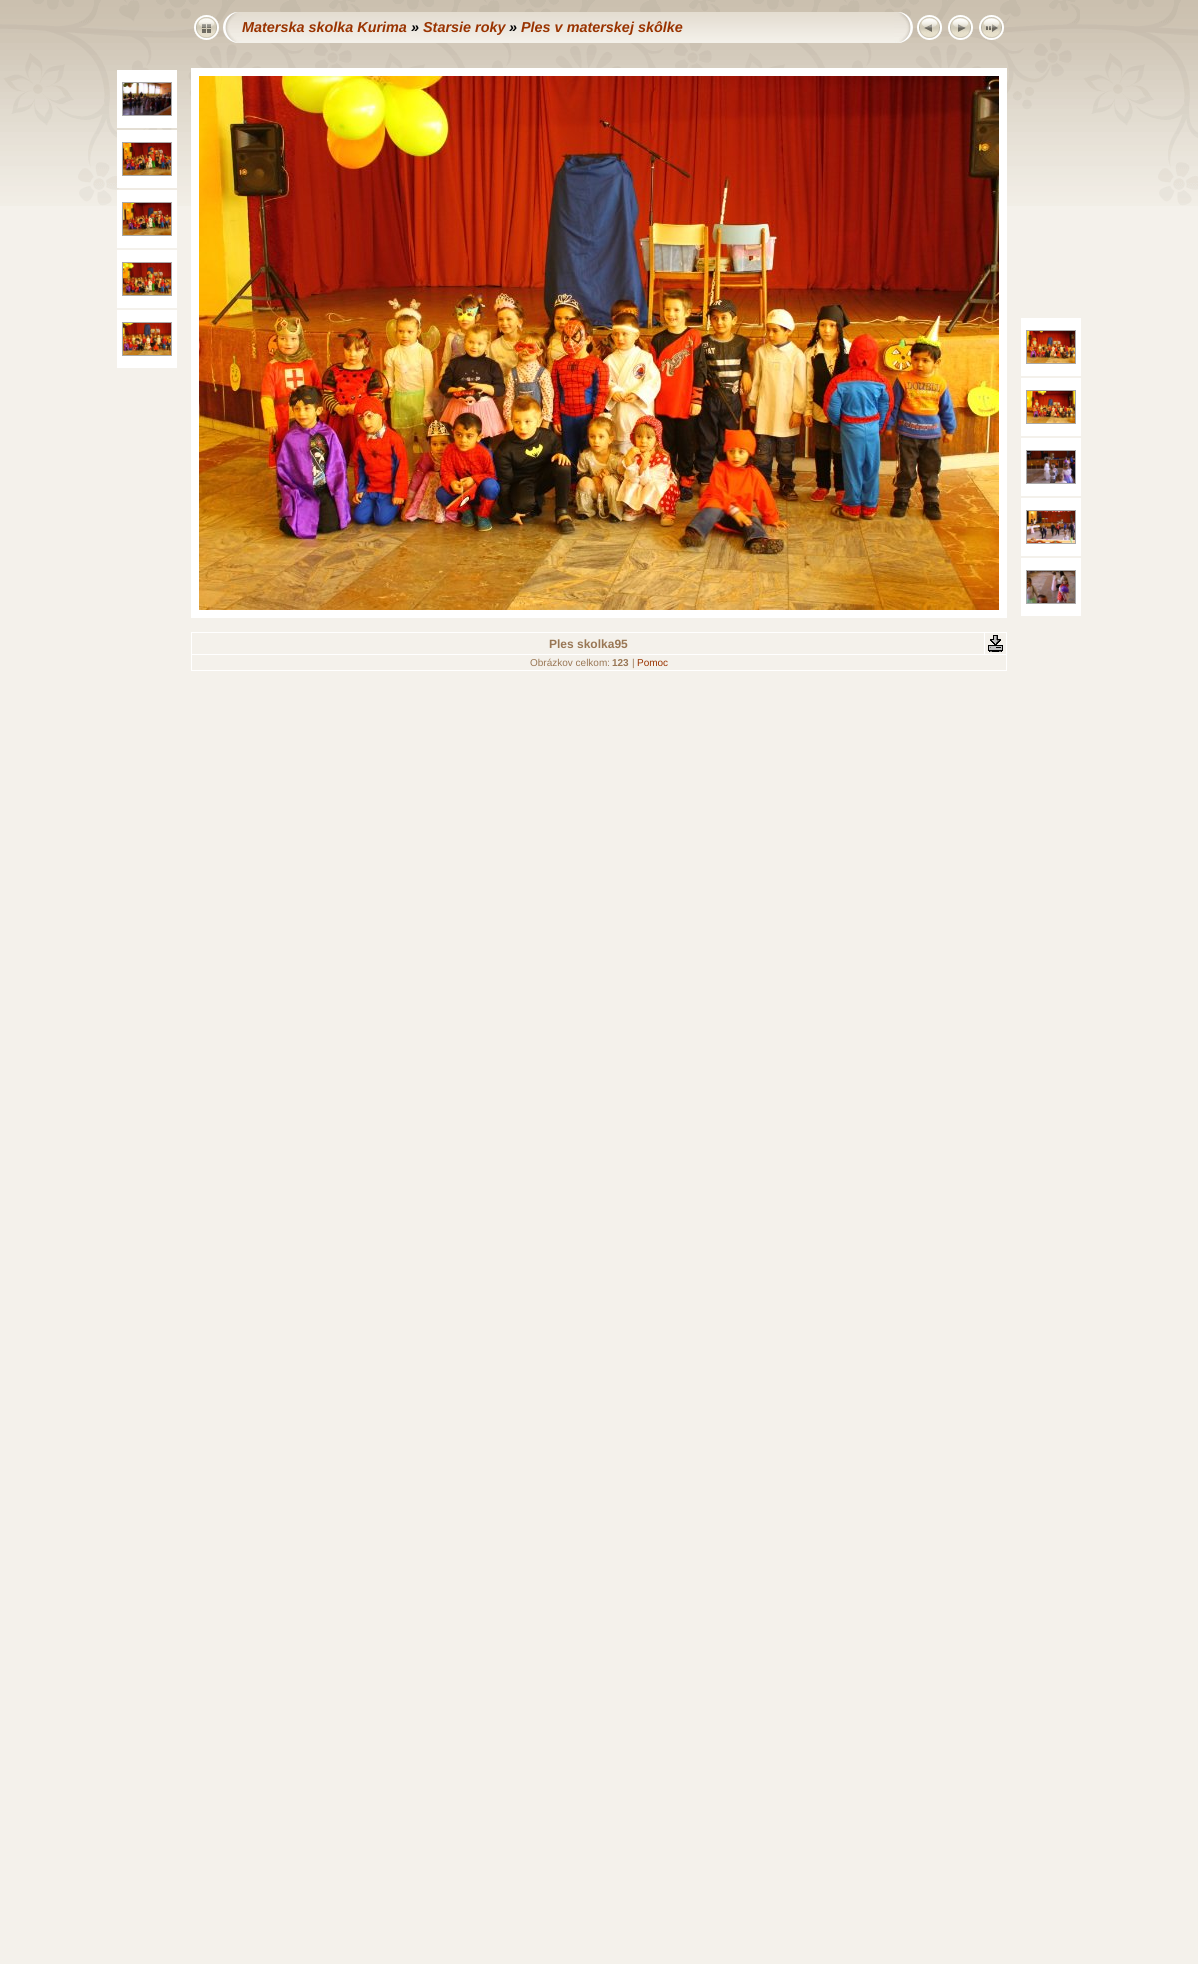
import math
import cairo

surface = cairo.ImageSurface(cairo.FORMAT_RGB24, 1198, 1964)
ctx = cairo.Context(surface)
options = cairo.FontOptions()
options.set_hint_metrics(cairo.HINT_METRICS_OFF)
options.set_hint_style(cairo.HINT_STYLE_NONE)
ctx.set_font_options(options)
ctx.set_miter_limit(4)


def picture(path, x, y, w, h):
    ctx.save()
    ctx.set_source_surface(cairo.ImageSurface.create_from_png(path), x, y)
    ctx.rectangle(x, y, w, h)
    ctx.fill()
    ctx.restore()


ctx.set_source_rgb(0.957, 0.945, 0.918)
ctx.paint()
picture("img1.png", 0, 0, 1198, 206)
picture("img2.png", 194, 15, 25, 25)
picture("img3.png", 223, 12, 19, 31)
picture("img4.png", 242, 12, 652, 31)
ctx.select_font_face("Liberation Sans", cairo.FONT_SLANT_ITALIC, cairo.FONT_WEIGHT_BOLD)
ctx.set_font_size(14.4)
ctx.set_source_rgb(0.6, 0.2, 0)
ctx.move_to(242, 32)
ctx.show_text("Materska skolka Kurima")
ctx.set_source_rgb(0, 0, 0)
ctx.move_to(411, 32)
ctx.show_text("»")
ctx.set_source_rgb(0.6, 0.2, 0)
ctx.move_to(423, 32)
ctx.show_text("Starsie roky")
ctx.set_source_rgb(0, 0, 0)
ctx.move_to(509, 32)
ctx.show_text("»")
ctx.set_source_rgb(0.6, 0.2, 0)
ctx.move_to(521, 32)
ctx.show_text("Ples v materskej skôlke")
picture("img5.png", 894, 12, 19, 31)
picture("img6.png", 917, 15, 25, 25)
picture("img7.png", 948, 15, 25, 25)
picture("img8.png", 979, 15, 25, 25)
ctx.set_source_rgb(1, 1, 1)
ctx.rectangle(117, 70, 60, 58)
ctx.fill()
ctx.rectangle(122.5, 82.5, 49, 33)
ctx.set_source_rgb(0.667, 0.667, 0.667)
ctx.set_line_width(1)
ctx.stroke()
picture("img9.png", 123, 83, 48, 32)
ctx.set_source_rgb(1, 1, 1)
ctx.rectangle(117, 130, 60, 58)
ctx.fill()
ctx.rectangle(122.5, 142.5, 49, 33)
ctx.set_source_rgb(0.667, 0.667, 0.667)
ctx.stroke()
picture("img10.png", 123, 143, 48, 32)
ctx.set_source_rgb(1, 1, 1)
ctx.rectangle(117, 190, 60, 58)
ctx.fill()
ctx.rectangle(122.5, 202.5, 49, 33)
ctx.set_source_rgb(0.667, 0.667, 0.667)
ctx.stroke()
picture("img11.png", 123, 203, 48, 32)
ctx.set_source_rgb(1, 1, 1)
ctx.rectangle(117, 250, 60, 58)
ctx.fill()
ctx.rectangle(122.5, 262.5, 49, 33)
ctx.set_source_rgb(0.667, 0.667, 0.667)
ctx.stroke()
picture("img12.png", 123, 263, 48, 32)
ctx.set_source_rgb(1, 1, 1)
ctx.rectangle(117, 310, 60, 58)
ctx.fill()
ctx.rectangle(122.5, 322.5, 49, 33)
ctx.set_source_rgb(0.667, 0.667, 0.667)
ctx.stroke()
picture("img13.png", 123, 323, 48, 32)
ctx.rectangle(195, 72, 808, 542)
ctx.set_source_rgb(1, 1, 1)
ctx.set_line_width(8)
ctx.stroke()
picture("img14.png", 199, 76, 800, 534)
ctx.rectangle(1021, 318, 60, 58)
ctx.fill()
ctx.rectangle(1026.5, 330.5, 49, 33)
ctx.set_source_rgb(0.667, 0.667, 0.667)
ctx.set_line_width(1)
ctx.stroke()
picture("img15.png", 1027, 331, 48, 32)
ctx.set_source_rgb(1, 1, 1)
ctx.rectangle(1021, 378, 60, 58)
ctx.fill()
ctx.rectangle(1026.5, 390.5, 49, 33)
ctx.set_source_rgb(0.667, 0.667, 0.667)
ctx.stroke()
picture("img16.png", 1027, 391, 48, 32)
ctx.set_source_rgb(1, 1, 1)
ctx.rectangle(1021, 438, 60, 58)
ctx.fill()
ctx.rectangle(1026.5, 450.5, 49, 33)
ctx.set_source_rgb(0.667, 0.667, 0.667)
ctx.stroke()
picture("img17.png", 1027, 451, 48, 32)
ctx.set_source_rgb(1, 1, 1)
ctx.rectangle(1021, 498, 60, 58)
ctx.fill()
ctx.rectangle(1026.5, 510.5, 49, 33)
ctx.set_source_rgb(0.667, 0.667, 0.667)
ctx.stroke()
picture("img18.png", 1027, 511, 48, 32)
ctx.set_source_rgb(1, 1, 1)
ctx.rectangle(1021, 558, 60, 58)
ctx.fill()
ctx.rectangle(1026.5, 570.5, 49, 33)
ctx.set_source_rgb(0.667, 0.667, 0.667)
ctx.stroke()
picture("img19.png", 1027, 571, 48, 32)
ctx.set_source_rgb(1, 1, 1)
ctx.rectangle(191, 632, 816, 1)
ctx.fill()
ctx.rectangle(1006, 632, 1, 39)
ctx.fill()
ctx.rectangle(191, 670, 816, 1)
ctx.fill()
ctx.rectangle(191, 632, 1, 39)
ctx.fill()
ctx.select_font_face("Liberation Sans", cairo.FONT_SLANT_NORMAL, cairo.FONT_WEIGHT_BOLD)
ctx.set_font_size(12)
ctx.set_source_rgb(0.6, 0.467, 0.333)
ctx.move_to(549, 648)
ctx.show_text("Ples skolka95")
ctx.set_source_rgb(1, 1, 1)
ctx.rectangle(191, 654, 816, 1)
ctx.fill()
ctx.rectangle(984, 632, 1, 23)
ctx.fill()
picture("img20.png", 988, 635, 15, 17)
ctx.select_font_face("Liberation Sans")
ctx.set_font_size(10)
ctx.set_source_rgb(0.6, 0.467, 0.333)
ctx.move_to(530, 666)
ctx.show_text("Obrázkov celkom:")
ctx.select_font_face("Liberation Sans", cairo.FONT_SLANT_NORMAL, cairo.FONT_WEIGHT_BOLD)
ctx.move_to(612, 666)
ctx.show_text("123")
ctx.select_font_face("Liberation Sans")
ctx.move_to(632, 666)
ctx.show_text("|")
ctx.set_source_rgb(0.6, 0.2, 0)
ctx.move_to(637, 666)
ctx.show_text("Pomoc")
surface.write_to_png("page.png")
